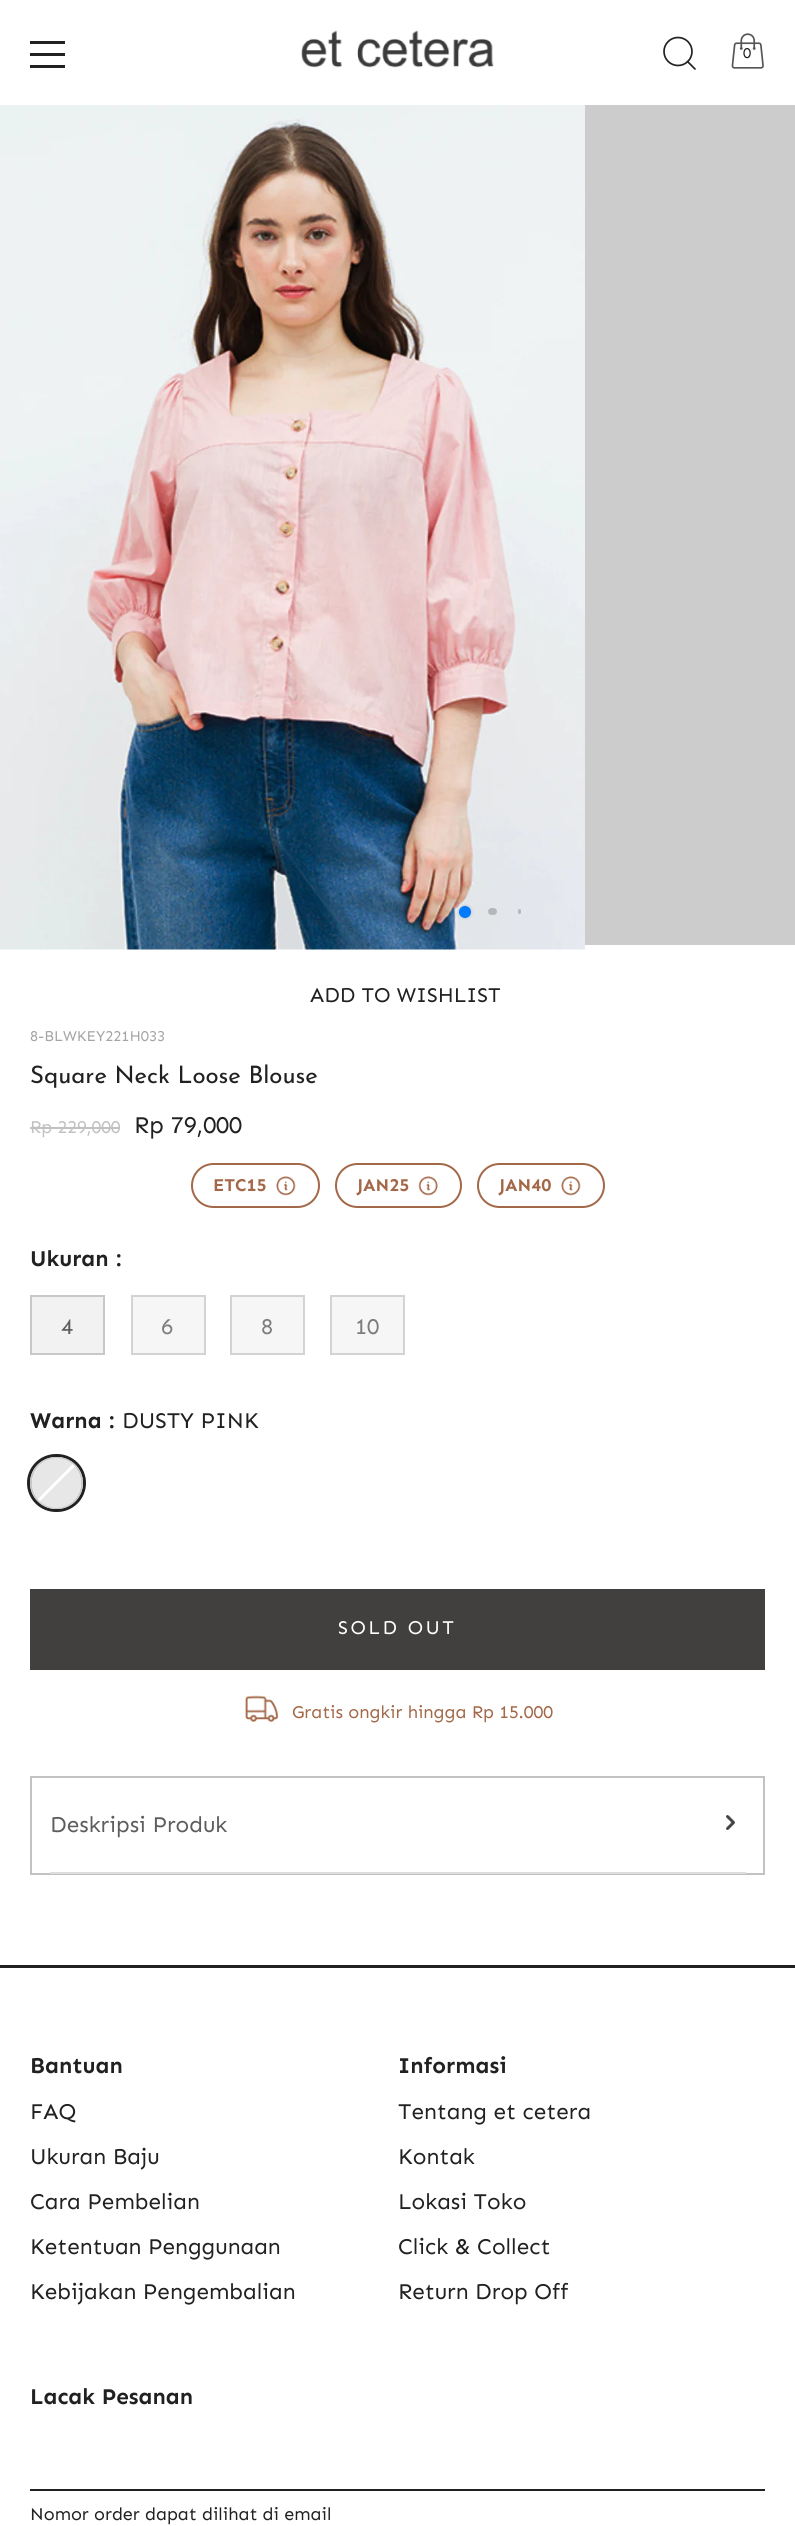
import math
import cairo

surface = cairo.ImageSurface(cairo.FORMAT_RGB24, 795, 2526)
ctx = cairo.Context(surface)
options = cairo.FontOptions()
options.set_hint_metrics(cairo.HINT_METRICS_OFF)
options.set_hint_style(cairo.HINT_STYLE_NONE)
ctx.set_font_options(options)
ctx.set_miter_limit(4)


def spaced_text(x, y, s, letter, word):
    ctx.move_to(x, y)
    for ch in s:
        ctx.show_text(ch)
        ctx.rel_move_to(letter + word * (ch == ' '), 0)


def round_rect(x, y, w, h, r):
    ctx.new_sub_path()
    for i, (u, v) in enumerate([(x + w - r, y + h - r), (x + r, y + h - r), (x + r, y + r), (x + w - r, y + r)]):
        ctx.arc(u, v, r, i * math.pi / 2, (i + 1) * math.pi / 2)
    ctx.close_path()


def shadow(x, y, w, h, r, blur, alpha):
    ctx.push_group_with_content(cairo.CONTENT_ALPHA)
    ctx.set_operator(cairo.OPERATOR_SOURCE)
    for i in range(15, -16, -2):
        e = blur * i / 6
        if min(w, h) + 2 * e > 0:
            ctx.set_source_rgba(0, 0, 0, alpha * math.erfc((i - 1) / 8.5) / 2)
            round_rect(x - e, y - e, w + 2 * e, h + 2 * e, max(0, min(r + e + blur * .6, min(w, h) / 2 + e)))
            ctx.fill()
    ctx.mask(ctx.pop_group())


def picture(path, x, y, w, h):
    ctx.save()
    ctx.set_source_surface(cairo.ImageSurface.create_from_png(path), x, y)
    ctx.rectangle(x, y, w, h)
    ctx.fill()
    ctx.restore()


ctx.set_source_rgb(1, 1, 1)
ctx.paint()
ctx.set_source_rgb(0.129, 0.129, 0.129)
ctx.rectangle(30, 41, 35, 3)
ctx.fill()
ctx.rectangle(30, 53, 35, 3)
ctx.fill()
ctx.rectangle(30, 65, 35, 3)
ctx.fill()
picture("img1.png", 301, 30, 193, 38)
ctx.arc(678, 51.5, 14, 0, 2 * math.pi)
ctx.set_line_width(1.7)
ctx.stroke()
ctx.new_path()
ctx.move_to(695, 69)
ctx.line_to(687.5, 61.5)
ctx.set_line_cap(cairo.LINE_CAP_ROUND)
ctx.set_line_join(cairo.LINE_JOIN_ROUND)
ctx.stroke()
picture("img2.png", 731, 33, 33, 36)
ctx.select_font_face("Sen")
ctx.set_font_size(15)
ctx.move_to(743, 58)
ctx.show_text("0")
ctx.set_source_rgb(0.8, 0.8, 0.8)
ctx.rectangle(585, 105, 210, 840)
ctx.fill()
picture("img3.png", 0, 105, 585, 845)
ctx.set_source_rgb(0, 0, 0)
shadow(459, 906, 12, 12, 6, 1.5, 0.2)
ctx.set_source_rgb(0, 0.478, 1)
ctx.arc(465, 912, 6, 0, 2 * math.pi)
ctx.fill()
ctx.set_source_rgb(0.71, 0.722, 0.733)
round_rect(488, 908, 9, 7, 3.5)
ctx.fill()
ctx.set_source_rgb(0.714, 0.725, 0.737)
round_rect(518, 909, 3, 5, 1.5)
ctx.fill()
ctx.set_font_size(21)
ctx.set_source_rgb(0.129, 0.129, 0.129)
ctx.move_to(310, 1002)
ctx.show_text("ADD TO WISHLIST")
ctx.set_font_size(15)
ctx.set_source_rgb(0.647, 0.647, 0.647)
ctx.move_to(30, 1041)
ctx.show_text("8-BLWKEY221H033")
ctx.select_font_face("Josefin Sans")
ctx.set_font_size(24)
ctx.set_source_rgb(0.129, 0.129, 0.129)
ctx.move_to(30, 1083)
ctx.show_text("Square Neck Loose Blouse")
ctx.select_font_face("Sen")
ctx.set_font_size(18)
ctx.set_source_rgb(0.757, 0.757, 0.757)
ctx.move_to(30, 1133)
ctx.show_text("Rp 229,000")
ctx.rectangle(30, 1127, 90, 2)
ctx.fill()
ctx.set_font_size(24)
ctx.set_source_rgb(0.129, 0.129, 0.129)
ctx.move_to(134, 1133)
ctx.show_text("Rp 79,000")
round_rect(192, 1164, 127, 43, 21.5)
ctx.set_source_rgb(0.639, 0.408, 0.282)
ctx.set_line_width(2)
ctx.set_line_cap(cairo.LINE_CAP_BUTT)
ctx.set_line_join(cairo.LINE_JOIN_MITER)
ctx.stroke()
ctx.select_font_face("Sen", cairo.FONT_SLANT_NORMAL, cairo.FONT_WEIGHT_BOLD)
ctx.set_font_size(18)
ctx.move_to(213, 1191)
ctx.show_text("ETC15")
picture("img4.png", 276, 1176, 20, 20)
round_rect(336, 1164, 125, 43, 21.5)
ctx.stroke()
ctx.move_to(357, 1191)
ctx.show_text("JAN25")
picture("img5.png", 418, 1176, 20, 20)
round_rect(478, 1164, 126, 43, 21.5)
ctx.stroke()
ctx.move_to(499, 1191)
ctx.show_text("JAN40")
picture("img4.png", 561, 1176, 20, 20)
ctx.set_font_size(22.5)
ctx.set_source_rgb(0.129, 0.129, 0.129)
ctx.move_to(30, 1266)
ctx.show_text("Ukuran :")
ctx.set_source_rgb(0.949, 0.949, 0.949)
ctx.rectangle(31, 1296, 73, 58)
ctx.fill_preserve()
ctx.set_source_rgb(0.784, 0.784, 0.784)
ctx.stroke()
ctx.select_font_face("Sen")
ctx.set_source_rgb(0.369, 0.361, 0.361)
ctx.move_to(61, 1334)
ctx.show_text("4")
ctx.set_source_rgb(0.961, 0.961, 0.961)
ctx.rectangle(132, 1296, 73, 58)
ctx.fill_preserve()
ctx.set_source_rgb(0.827, 0.827, 0.827)
ctx.stroke()
ctx.set_source_rgb(0.494, 0.49, 0.49)
ctx.move_to(161, 1334)
ctx.show_text("6")
ctx.set_source_rgb(0.961, 0.961, 0.961)
ctx.rectangle(231, 1296, 73, 58)
ctx.fill_preserve()
ctx.set_source_rgb(0.827, 0.827, 0.827)
ctx.stroke()
ctx.set_source_rgb(0.494, 0.49, 0.49)
ctx.move_to(261, 1334)
ctx.show_text("8")
ctx.set_source_rgb(0.961, 0.961, 0.961)
ctx.rectangle(331, 1296, 73, 58)
ctx.fill_preserve()
ctx.set_source_rgb(0.827, 0.827, 0.827)
ctx.stroke()
ctx.set_source_rgb(0.494, 0.49, 0.49)
ctx.move_to(355, 1334)
ctx.show_text("10")
ctx.select_font_face("Sen", cairo.FONT_SLANT_NORMAL, cairo.FONT_WEIGHT_BOLD)
ctx.set_source_rgb(0.129, 0.129, 0.129)
ctx.move_to(30, 1428)
ctx.show_text("Warna :")
ctx.select_font_face("Sen")
ctx.move_to(122, 1428)
ctx.show_text("DUSTY PINK")
round_rect(28.5, 1455.5, 56, 55, 27.5)
ctx.set_line_width(3)
ctx.stroke()
round_rect(31, 1458, 51, 50, 25)
ctx.set_source_rgb(0.784, 0.784, 0.784)
ctx.set_line_width(2)
ctx.stroke()
ctx.set_source_rgb(0.906, 0.906, 0.906)
round_rect(32, 1458, 49, 50, 24.5)
ctx.fill()
ctx.save()
round_rect(32, 1458, 49, 50, 24.5)
ctx.clip()
ctx.new_path()
ctx.move_to(81, 1458)
ctx.line_to(31.5, 1507.5)
ctx.set_source_rgb(1, 1, 1)
ctx.set_line_width(3)
ctx.stroke()
ctx.restore()
ctx.set_source_rgb(0.259, 0.247, 0.247)
ctx.rectangle(30, 1589, 735, 81)
ctx.fill()
ctx.set_font_size(19.5)
ctx.set_source_rgb(1, 1, 1)
spaced_text(338, 1634, "SOLD OUT", 2.5, 0)
picture("img6.png", 245, 1695, 34, 27)
ctx.set_font_size(18)
ctx.set_source_rgb(0.639, 0.408, 0.282)
ctx.move_to(292, 1718)
ctx.show_text("Gratis ongkir hingga Rp 15.000")
ctx.rectangle(31, 1777, 733, 97)
ctx.set_source_rgb(0.761, 0.761, 0.761)
ctx.stroke()
ctx.set_source_rgb(0.867, 0.867, 0.867)
ctx.rectangle(50, 1872, 696, 2)
ctx.fill()
ctx.set_font_size(22.5)
ctx.set_source_rgb(0.369, 0.361, 0.361)
ctx.move_to(50, 1832)
ctx.show_text("Deskripsi Produk")
picture("img7.png", 726, 1815, 9, 15)
ctx.set_source_rgb(0.129, 0.129, 0.129)
ctx.rectangle(0, 1965, 795, 3)
ctx.fill()
ctx.select_font_face("Sen", cairo.FONT_SLANT_NORMAL, cairo.FONT_WEIGHT_BOLD)
ctx.move_to(30, 2073)
ctx.show_text("Bantuan")
ctx.select_font_face("Sen")
ctx.move_to(30, 2119)
ctx.show_text("FAQ")
ctx.move_to(30, 2164)
ctx.show_text("Ukuran Baju")
ctx.move_to(30, 2209)
ctx.show_text("Cara Pembelian")
ctx.move_to(30, 2254)
ctx.show_text("Ketentuan Penggunaan")
ctx.move_to(30, 2299)
ctx.show_text("Kebijakan Pengembalian")
ctx.select_font_face("Sen", cairo.FONT_SLANT_NORMAL, cairo.FONT_WEIGHT_BOLD)
ctx.move_to(398, 2073)
ctx.show_text("Informasi")
ctx.select_font_face("Sen")
ctx.move_to(398, 2119)
ctx.show_text("Tentang et cetera")
ctx.move_to(398, 2164)
ctx.show_text("Kontak")
ctx.move_to(398, 2209)
ctx.show_text("Lokasi Toko")
ctx.move_to(398, 2254)
ctx.show_text("Click & Collect")
ctx.move_to(398, 2299)
ctx.show_text("Return Drop Off")
ctx.select_font_face("Sen", cairo.FONT_SLANT_NORMAL, cairo.FONT_WEIGHT_BOLD)
ctx.move_to(30, 2404)
ctx.show_text("Lacak Pesanan")
ctx.rectangle(30, 2489, 735, 2)
ctx.fill()
ctx.select_font_face("Sen")
ctx.set_font_size(18)
ctx.move_to(30, 2520)
ctx.show_text("Nomor order dapat dilihat di email")
surface.write_to_png("page.png")
